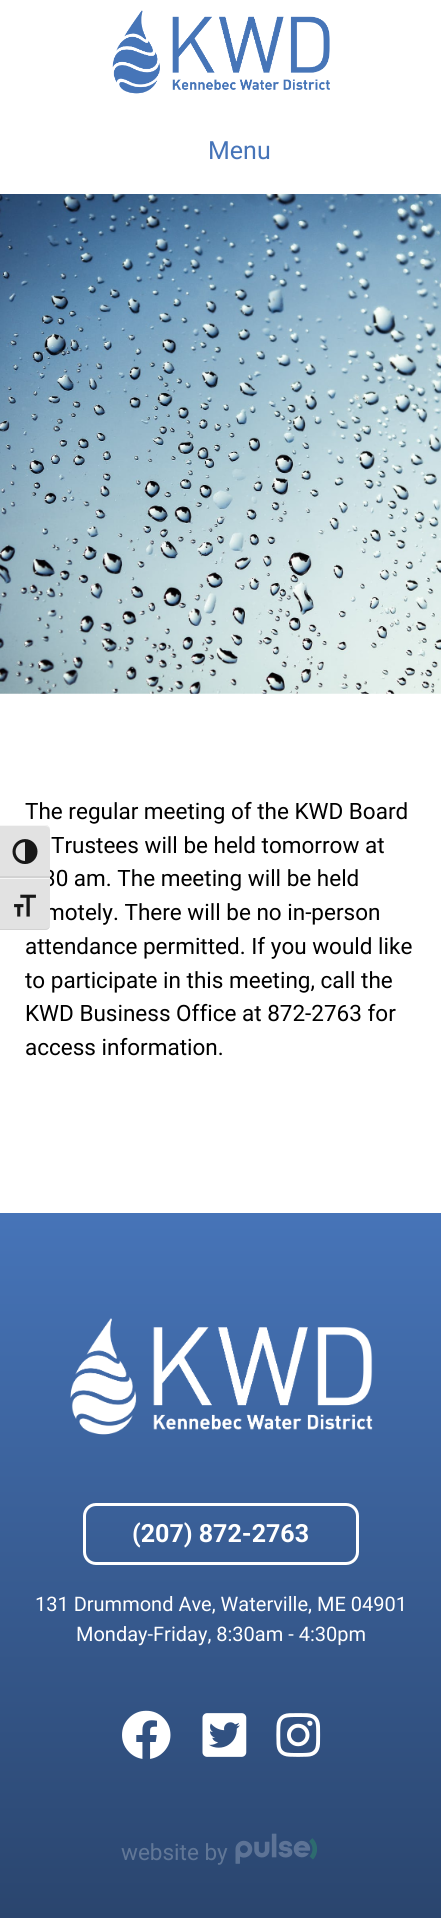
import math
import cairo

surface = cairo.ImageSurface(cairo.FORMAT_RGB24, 441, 1918)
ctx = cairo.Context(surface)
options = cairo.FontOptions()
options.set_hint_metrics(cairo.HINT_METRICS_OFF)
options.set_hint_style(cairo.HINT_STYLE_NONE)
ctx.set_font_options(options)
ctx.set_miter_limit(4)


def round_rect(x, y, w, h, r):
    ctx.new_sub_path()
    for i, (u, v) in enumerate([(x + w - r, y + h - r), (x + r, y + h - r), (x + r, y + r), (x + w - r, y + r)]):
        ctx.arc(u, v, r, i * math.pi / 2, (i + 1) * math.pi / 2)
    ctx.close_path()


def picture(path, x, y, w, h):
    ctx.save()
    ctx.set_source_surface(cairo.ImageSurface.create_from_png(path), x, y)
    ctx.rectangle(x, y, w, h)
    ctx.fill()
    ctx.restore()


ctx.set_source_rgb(1, 1, 1)
ctx.paint()
picture("img1.png", 112, 10, 218, 84)
ctx.select_font_face("Roboto")
ctx.set_font_size(25)
ctx.set_source_rgb(0.275, 0.455, 0.722)
ctx.move_to(208, 159)
ctx.show_text("Menu")
picture("img2.png", 0, 194, 441, 500)
ctx.set_font_size(22.5)
ctx.set_source_rgb(0, 0, 0)
ctx.move_to(25, 819)
ctx.show_text("The regular meeting of the KWD Board")
ctx.move_to(51, 853)
ctx.show_text("Trustees will be held tomorrow at")
ctx.move_to(43, 886)
ctx.show_text("30 am. The meeting will be held")
ctx.move_to(45, 920)
ctx.show_text("motely. There will be no in-person")
ctx.move_to(25, 954)
ctx.show_text("attendance permitted. If you would like")
ctx.move_to(25, 988)
ctx.show_text("to participate in this meeting, call the")
ctx.move_to(25, 1021)
ctx.show_text("KWD Business Office at 872-2763 for")
ctx.move_to(25, 1055)
ctx.show_text("access information.")
ctx.set_source_rgb(0.886, 0.886, 0.886)
ctx.new_path()
ctx.move_to(0, 825)
ctx.line_to(45, 825)
ctx.curve_to(48, 825, 50, 827, 50, 830)
ctx.line_to(50, 878)
ctx.line_to(0, 878)
ctx.close_path()
ctx.fill()
ctx.set_source_rgb(0.961, 0.961, 0.961)
ctx.new_path()
ctx.move_to(0, 825)
ctx.line_to(0, 826)
ctx.line_to(45, 826)
ctx.curve_to(48, 826, 50, 828, 50, 830)
ctx.curve_to(50, 827, 48, 825, 45, 825)
ctx.close_path()
ctx.fill()
ctx.set_source_rgb(0.824, 0.824, 0.824)
ctx.rectangle(0, 876, 50, 2)
ctx.fill()
picture("img3.png", 12, 839, 26, 25)
ctx.set_source_rgb(0.886, 0.886, 0.886)
ctx.new_path()
ctx.move_to(0, 878)
ctx.line_to(50, 878)
ctx.line_to(50, 925)
ctx.curve_to(50, 928, 48, 930, 45, 930)
ctx.line_to(0, 930)
ctx.close_path()
ctx.fill()
ctx.set_source_rgb(0.961, 0.961, 0.961)
ctx.rectangle(0, 878, 50, 1)
ctx.fill()
ctx.set_source_rgb(0.824, 0.824, 0.824)
ctx.new_path()
ctx.move_to(0, 929)
ctx.line_to(0, 930)
ctx.line_to(45, 930)
ctx.curve_to(48, 930, 50, 928, 50, 925)
ctx.curve_to(50, 927, 48, 929, 45, 929)
ctx.close_path()
ctx.fill()
picture("img4.png", 14, 894, 22, 23)
gradient = cairo.LinearGradient(221, 1213, 221, 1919)
gradient.add_color_stop_rgba(0, 0.275, 0.455, 0.722, 1)
gradient.add_color_stop_rgba(1, 0.165, 0.271, 0.431, 1)
ctx.set_source(gradient)
ctx.rectangle(0, 1213, 441, 705)
ctx.fill()
picture("img5.png", 70, 1318, 303, 117)
round_rect(84.5, 1504.5, 273, 59, 11.5)
ctx.set_source_rgb(1, 1, 1)
ctx.set_line_width(3)
ctx.stroke()
ctx.select_font_face("Roboto", cairo.FONT_SLANT_NORMAL, cairo.FONT_WEIGHT_BOLD)
ctx.set_font_size(25)
ctx.move_to(132, 1542)
ctx.show_text("(207) 872-2763")
ctx.select_font_face("Roboto")
ctx.set_font_size(20)
ctx.move_to(35, 1611)
ctx.show_text("131 Drummond Ave, Waterville, ME 04901")
ctx.move_to(76, 1641)
ctx.show_text("Monday-Friday, 8:30am - 4:30pm")
picture("img6.png", 122, 1710, 49, 49)
picture("img7.png", 202, 1713, 45, 44)
picture("img8.png", 276, 1713, 45, 44)
ctx.set_font_size(22.5)
ctx.set_source_rgb(0.38, 0.467, 0.592)
ctx.move_to(121, 1860)
ctx.show_text("website by")
picture("img9.png", 235, 1833, 82, 31)
surface.write_to_png("page.png")
